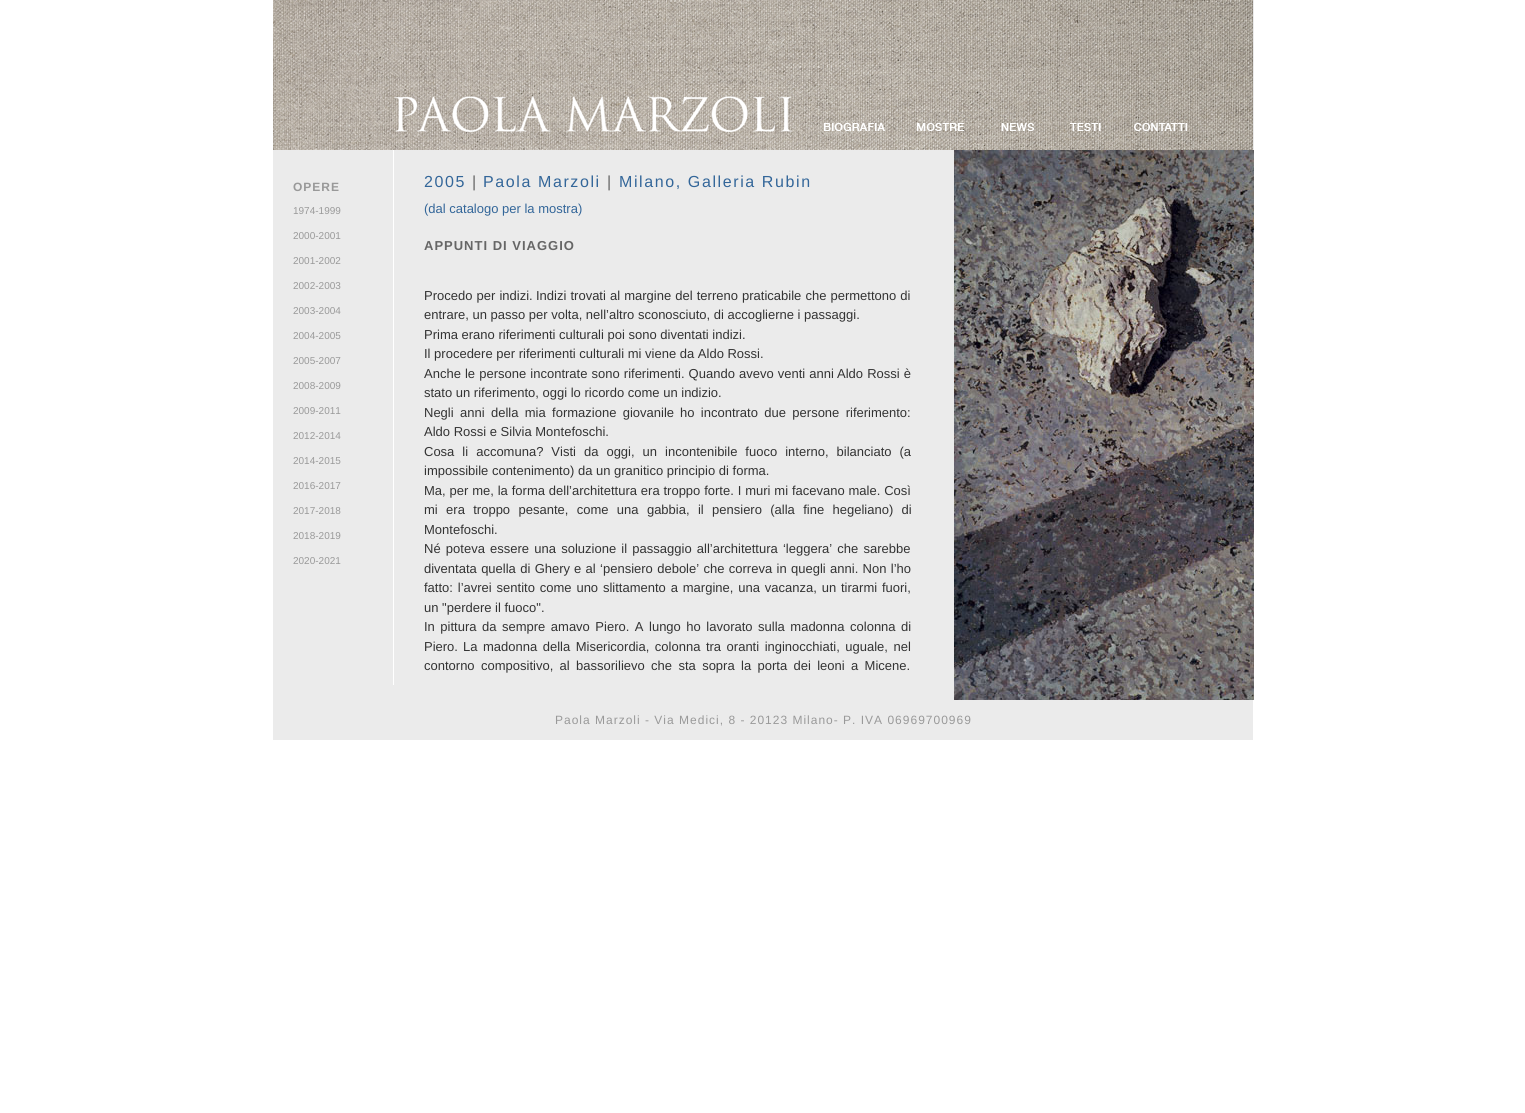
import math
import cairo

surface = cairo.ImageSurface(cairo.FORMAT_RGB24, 1525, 1113)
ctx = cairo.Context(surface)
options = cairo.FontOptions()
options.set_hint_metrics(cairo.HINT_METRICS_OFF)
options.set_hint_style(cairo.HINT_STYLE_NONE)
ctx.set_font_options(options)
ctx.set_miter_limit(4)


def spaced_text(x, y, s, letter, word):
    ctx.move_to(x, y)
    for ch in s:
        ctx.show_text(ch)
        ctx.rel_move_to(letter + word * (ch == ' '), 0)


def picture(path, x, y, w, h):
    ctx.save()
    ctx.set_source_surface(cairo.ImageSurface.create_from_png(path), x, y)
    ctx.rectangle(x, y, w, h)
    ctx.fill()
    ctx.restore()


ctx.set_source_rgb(1, 1, 1)
ctx.paint()
ctx.set_source_rgb(0.918, 0.918, 0.918)
ctx.rectangle(273, 150, 980, 590)
ctx.fill()
ctx.rectangle(1253, 0, 1, 150)
ctx.fill()
picture("img1.png", 273, 0, 980, 150)
ctx.set_source_rgb(1, 1, 1)
ctx.rectangle(393, 150, 1, 535)
ctx.fill()
ctx.select_font_face("Liberation Sans", cairo.FONT_SLANT_NORMAL, cairo.FONT_WEIGHT_BOLD)
ctx.set_font_size(12)
ctx.set_source_rgb(0.6, 0.6, 0.6)
spaced_text(293, 191, "OPERE", 1, 0)
ctx.select_font_face("Liberation Sans")
ctx.set_font_size(10)
ctx.move_to(293, 214)
ctx.show_text("1974-1999")
ctx.move_to(293, 239)
ctx.show_text("2000-2001")
ctx.move_to(293, 264)
ctx.show_text("2001-2002")
ctx.move_to(293, 289)
ctx.show_text("2002-2003")
ctx.move_to(293, 314)
ctx.show_text("2003-2004")
ctx.move_to(293, 339)
ctx.show_text("2004-2005")
ctx.move_to(293, 364)
ctx.show_text("2005-2007")
ctx.move_to(293, 389)
ctx.show_text("2008-2009")
ctx.move_to(293, 414)
ctx.show_text("2009-2011")
ctx.move_to(293, 439)
ctx.show_text("2012-2014")
ctx.move_to(293, 464)
ctx.show_text("2014-2015")
ctx.move_to(293, 489)
ctx.show_text("2016-2017")
ctx.move_to(293, 514)
ctx.show_text("2017-2018")
ctx.move_to(293, 539)
ctx.show_text("2018-2019")
ctx.move_to(293, 564)
ctx.show_text("2020-2021")
ctx.set_font_size(16)
ctx.set_source_rgb(0.2, 0.4, 0.6)
spaced_text(424, 187, "2005", 1.6, 0)
ctx.set_source_rgb(0.4, 0.4, 0.4)
spaced_text(472, 187, "|", 1.6, 0)
ctx.set_source_rgb(0.2, 0.4, 0.6)
spaced_text(483, 187, "Paola Marzoli", 1.6, 0)
ctx.set_source_rgb(0.4, 0.4, 0.4)
spaced_text(607, 187, "|", 1.6, 0)
ctx.set_source_rgb(0.2, 0.4, 0.6)
spaced_text(619, 187, "Milano, Galleria Rubin", 1.6, 0)
ctx.set_font_size(13)
ctx.move_to(424, 213)
ctx.show_text("(dal catalogo per la mostra)")
ctx.select_font_face("Liberation Sans", cairo.FONT_SLANT_NORMAL, cairo.FONT_WEIGHT_BOLD)
ctx.set_source_rgb(0.4, 0.4, 0.4)
spaced_text(424, 250, "APPUNTI DI VIAGGIO", 1, 0)
ctx.select_font_face("Liberation Sans")
ctx.set_source_rgb(0.2, 0.2, 0.2)
spaced_text(424, 300, "Procedo per indizi.", 0, 0.5)
spaced_text(536, 300, "Indizi trovati al margine del terreno praticabile che permettono di", 0, 0.5)
ctx.move_to(424, 319)
ctx.show_text("entrare, un passo per volta, nell’altro sconosciuto, di accoglierne i passaggi.")
ctx.move_to(424, 339)
ctx.show_text("Prima erano riferimenti culturali poi sono diventati indizi.")
ctx.move_to(424, 358)
ctx.show_text("Il procedere per riferimenti culturali mi viene da Aldo Rossi.")
spaced_text(424, 378, "Anche le persone incontrate sono riferimenti. Quando avevo venti anni", 0, 0.5)
spaced_text(837, 378, "Aldo Rossi è", 0, 0.5)
ctx.move_to(424, 397)
ctx.show_text("stato un riferimento, oggi lo ricordo come un indizio.")
spaced_text(424, 417, "Negli anni della mia formazione giovanile", 0, 2.75)
spaced_text(680, 417, "ho incontrato due persone riferimento:", 0, 2.75)
ctx.move_to(424, 436)
ctx.show_text("Aldo Rossi e Silvia Montefoschi.")
spaced_text(424, 456, "Cosa li accomuna? Visti da oggi, un incontenibile fuoco interno, bilanciato (a", 0, 4.4)
ctx.move_to(424, 475)
ctx.show_text("impossibile contenimento) da un granitico principio di forma.")
spaced_text(424, 495, "Ma, per me, la forma dell’architettura era troppo forte. I muri mi facevano male. Così", 0, 0.25)
spaced_text(424, 514, "mi era troppo pesante, come una gabbia, il pensiero (alla fine hegeliano) di", 0, 4.75)
ctx.move_to(424, 534)
ctx.show_text("Montefoschi.")
spaced_text(424, 553, "Né poteva essere una soluzione il passaggio all’architettura ‘leggera’ che sarebbe", 0, 1.6)
spaced_text(424, 573, "diventata quella di Ghery", 0, 0.75)
spaced_text(574, 573, "e al ‘pensiero debole’ che correva in quegli anni. Non l’ho", 0, 0.75)
spaced_text(424, 592, "fatto: l’avrei sentito come uno slittamento a margine, una vacanza, un tirarmi fuori,", 0, 1.25)
ctx.move_to(424, 612)
ctx.show_text("un \"perdere il fuoco\".")
spaced_text(424, 631, "In pittura da sempre amavo Piero. A lungo ho lavorato sulla madonna colonna di", 0, 1.9)
ctx.move_to(424, 651)
ctx.show_text("Piero.")
spaced_text(463, 651, "La madonna della Misericordia, colonna tra oranti inginocchiati, uguale, nel", 0, 1.9)
ctx.move_to(424, 670)
ctx.show_text("contorno")
spaced_text(481, 670, "compositivo, al bassorilievo che sta sopra la porta dei leoni a Micene.", 0, 2.75)
picture("img2.png", 954, 150, 300, 550)
ctx.set_font_size(12)
ctx.set_source_rgb(0.6, 0.6, 0.6)
spaced_text(555, 724, "Paola Marzoli - Via Medici, 8 - 20123 Milano- P. IVA 06969700969", 1, 0)
surface.write_to_png("page.png")
